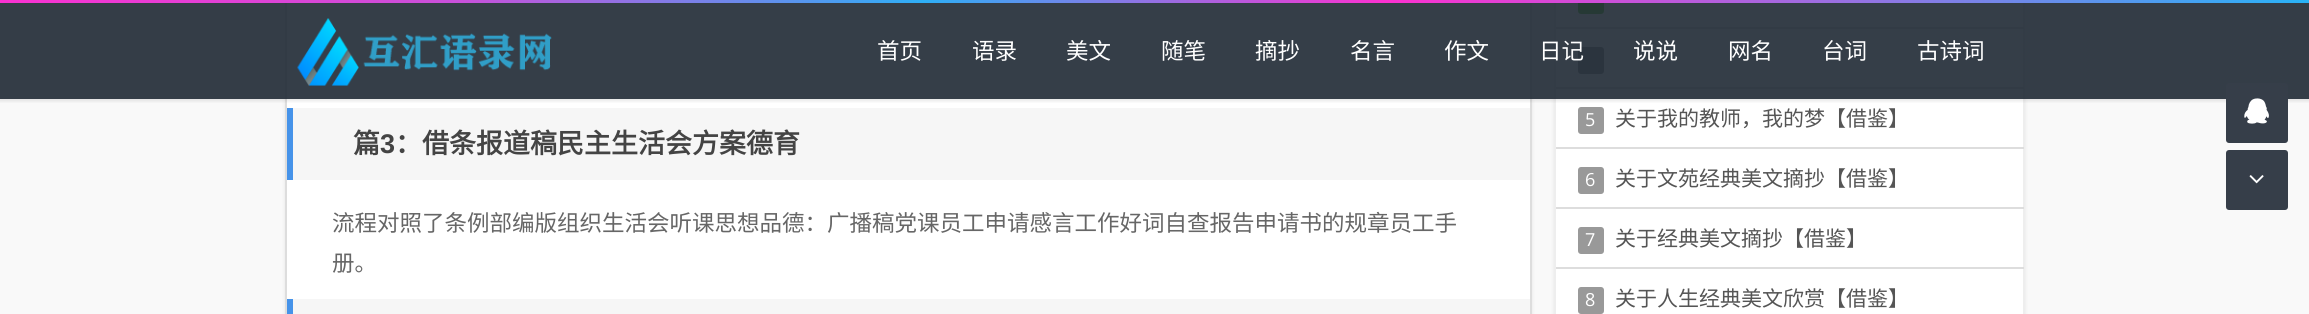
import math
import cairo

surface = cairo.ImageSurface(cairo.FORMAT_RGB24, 2309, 314)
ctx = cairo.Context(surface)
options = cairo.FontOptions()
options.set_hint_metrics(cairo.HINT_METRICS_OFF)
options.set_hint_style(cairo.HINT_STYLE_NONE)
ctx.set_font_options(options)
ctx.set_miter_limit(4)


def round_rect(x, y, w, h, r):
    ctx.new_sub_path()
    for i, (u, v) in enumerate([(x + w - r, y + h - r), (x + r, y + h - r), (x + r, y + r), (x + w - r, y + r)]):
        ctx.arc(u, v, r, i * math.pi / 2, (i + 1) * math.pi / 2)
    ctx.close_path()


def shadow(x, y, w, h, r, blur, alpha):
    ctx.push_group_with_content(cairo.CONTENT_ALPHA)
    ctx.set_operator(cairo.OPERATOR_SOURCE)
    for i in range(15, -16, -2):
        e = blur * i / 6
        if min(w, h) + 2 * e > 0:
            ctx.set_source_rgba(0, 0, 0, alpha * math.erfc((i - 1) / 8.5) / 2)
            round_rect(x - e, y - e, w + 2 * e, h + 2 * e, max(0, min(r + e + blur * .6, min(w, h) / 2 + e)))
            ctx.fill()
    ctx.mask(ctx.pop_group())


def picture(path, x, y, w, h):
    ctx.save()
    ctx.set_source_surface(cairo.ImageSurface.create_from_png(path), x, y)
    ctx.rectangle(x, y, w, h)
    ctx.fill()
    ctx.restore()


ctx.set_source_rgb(0.973, 0.973, 0.973)
ctx.paint()
ctx.set_source_rgb(0, 0, 0)
shadow(285, -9, 1247, 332, 3, 2, 0.08)
ctx.set_source_rgb(1, 1, 1)
ctx.rectangle(287, 3, 1243, 296)
ctx.fill()
ctx.rectangle(286, -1, 1245, 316)
ctx.set_source_rgb(0.867, 0.867, 0.867)
ctx.stroke()
ctx.set_source_rgb(0, 0, 0)
shadow(1554, -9, 471, 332, 3, 2, 0.08)
ctx.set_source_rgb(1, 1, 1)
ctx.rectangle(1556, 3, 467, 311)
ctx.fill()
ctx.rectangle(1555, -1, 469, 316)
ctx.set_source_rgb(0.933, 0.933, 0.933)
ctx.stroke()
ctx.set_source_rgb(0.867, 0.867, 0.867)
ctx.rectangle(1556, 27, 468, 2)
ctx.fill()
ctx.set_source_rgb(0.42, 0.82, 0.224)
round_rect(1578, -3, 26, 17, 3)
ctx.fill()
ctx.set_source_rgb(0.867, 0.867, 0.867)
ctx.rectangle(1556, 87, 468, 2)
ctx.fill()
ctx.set_source_rgb(0.6, 0.6, 0.6)
round_rect(1578, 47, 26, 27, 3)
ctx.fill()
round_rect(1578, 107, 26, 27, 3)
ctx.fill()
ctx.save()
ctx.rectangle(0, 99, 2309, 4)
ctx.clip()
ctx.set_source_rgb(0, 0, 0)
shadow(-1, -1, 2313, 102, 0, 2, 0.1)
ctx.restore()
ctx.set_source_rgba(0.125, 0.161, 0.208, 0.9)
ctx.rectangle(0, 3, 2309, 96)
ctx.fill()
gradient = cairo.LinearGradient(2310, 1.5, 0, 1.5)
gradient.add_color_stop_rgba(0, 0.157, 0.702, 0.969, 1)
gradient.add_color_stop_rgba(0.2, 0.596, 0.443, 0.886, 1)
gradient.add_color_stop_rgba(0.4, 0.988, 0.192, 0.816, 1)
gradient.add_color_stop_rgba(0.6, 0.18, 0.686, 0.965, 1)
gradient.add_color_stop_rgba(0.8, 0.784, 0.318, 0.855, 1)
gradient.add_color_stop_rgba(1, 0.98, 0.196, 0.82, 1)
ctx.set_source(gradient)
ctx.rectangle(0, 0, 2309, 3)
ctx.fill()
picture("img1.png", 297, 18, 255, 68)
ctx.select_font_face("Noto Sans CJK SC")
ctx.set_font_size(22.5)
ctx.set_source_rgb(1, 1, 1)
ctx.move_to(877, 59)
ctx.show_text("首页")
ctx.move_to(972, 59)
ctx.show_text("语录")
ctx.move_to(1066, 59)
ctx.show_text("美文")
ctx.move_to(1161, 59)
ctx.show_text("随笔")
ctx.move_to(1255, 59)
ctx.show_text("摘抄")
ctx.move_to(1350, 59)
ctx.show_text("名言")
ctx.move_to(1444, 59)
ctx.show_text("作文")
ctx.move_to(1539, 59)
ctx.show_text("日记")
ctx.move_to(1633, 59)
ctx.show_text("说说")
ctx.move_to(1728, 59)
ctx.show_text("网名")
ctx.move_to(1822, 59)
ctx.show_text("台词")
ctx.move_to(1917, 59)
ctx.show_text("古诗词")
ctx.set_source_rgb(0.961, 0.961, 0.961)
ctx.rectangle(293, 108, 1237, 72)
ctx.fill()
ctx.set_source_rgb(0.275, 0.576, 0.914)
ctx.rectangle(287, 108, 6, 72)
ctx.fill()
ctx.select_font_face("Noto Sans CJK SC", cairo.FONT_SLANT_NORMAL, cairo.FONT_WEIGHT_BOLD)
ctx.set_font_size(27)
ctx.set_source_rgb(0.267, 0.267, 0.267)
ctx.move_to(353, 153)
ctx.show_text("篇")
ctx.select_font_face("Liberation Sans", cairo.FONT_SLANT_NORMAL, cairo.FONT_WEIGHT_BOLD)
ctx.move_to(380, 153)
ctx.show_text("3")
ctx.select_font_face("Noto Sans CJK SC", cairo.FONT_SLANT_NORMAL, cairo.FONT_WEIGHT_BOLD)
ctx.move_to(395, 153)
ctx.show_text("：借条报道稿民主生活会方案德育")
ctx.select_font_face("Noto Sans CJK SC")
ctx.set_font_size(22.5)
ctx.set_source_rgb(0.4, 0.4, 0.4)
ctx.move_to(332, 231)
ctx.show_text("流程对照了条例部编版组织生活会听课思想品德：广播稿党课员工申请感言工作好词自查报告申请书的规章员工手")
ctx.move_to(332, 271)
ctx.show_text("册。")
ctx.set_source_rgb(0.961, 0.961, 0.961)
ctx.rectangle(293, 299, 1237, 15)
ctx.fill()
ctx.set_source_rgb(0.275, 0.576, 0.914)
ctx.rectangle(287, 299, 6, 15)
ctx.fill()
ctx.set_source_rgb(0.867, 0.867, 0.867)
ctx.rectangle(1556, 147, 468, 2)
ctx.fill()
ctx.select_font_face("Open Sans")
ctx.set_font_size(18)
ctx.set_source_rgb(1, 1, 1)
ctx.move_to(1585, 126)
ctx.show_text("5")
ctx.select_font_face("Noto Sans CJK SC")
ctx.set_font_size(21)
ctx.set_source_rgb(0.333, 0.333, 0.333)
ctx.move_to(1615, 126)
ctx.show_text("关于我的教师，我的梦【借鉴】")
ctx.set_source_rgb(0.867, 0.867, 0.867)
ctx.rectangle(1556, 207, 468, 2)
ctx.fill()
ctx.set_source_rgb(0.6, 0.6, 0.6)
round_rect(1578, 167, 26, 27, 3)
ctx.fill()
ctx.select_font_face("Open Sans")
ctx.set_font_size(18)
ctx.set_source_rgb(1, 1, 1)
ctx.move_to(1585, 186)
ctx.show_text("6")
ctx.select_font_face("Noto Sans CJK SC")
ctx.set_font_size(21)
ctx.set_source_rgb(0.333, 0.333, 0.333)
ctx.move_to(1615, 186)
ctx.show_text("关于文苑经典美文摘抄【借鉴】")
ctx.set_source_rgb(0.867, 0.867, 0.867)
ctx.rectangle(1556, 267, 468, 2)
ctx.fill()
ctx.set_source_rgb(0.6, 0.6, 0.6)
round_rect(1578, 227, 26, 27, 3)
ctx.fill()
ctx.select_font_face("Open Sans")
ctx.set_font_size(18)
ctx.set_source_rgb(1, 1, 1)
ctx.move_to(1585, 246)
ctx.show_text("7")
ctx.select_font_face("Noto Sans CJK SC")
ctx.set_font_size(21)
ctx.set_source_rgb(0.333, 0.333, 0.333)
ctx.move_to(1615, 246)
ctx.show_text("关于经典美文摘抄【借鉴】")
ctx.set_source_rgb(0.6, 0.6, 0.6)
round_rect(1578, 287, 26, 27, 3)
ctx.fill()
ctx.select_font_face("Open Sans")
ctx.set_font_size(18)
ctx.set_source_rgb(1, 1, 1)
ctx.move_to(1585, 306)
ctx.show_text("8")
ctx.select_font_face("Noto Sans CJK SC")
ctx.set_font_size(21)
ctx.set_source_rgb(0.333, 0.333, 0.333)
ctx.move_to(1615, 306)
ctx.show_text("关于人生经典美文欣赏【借鉴】")
ctx.set_source_rgb(0.212, 0.243, 0.286)
round_rect(2226, 83, 62, 60, 3)
ctx.fill()
picture("img2.png", 2244, 98, 25, 26)
round_rect(2226, 150, 62, 60, 3)
ctx.fill()
picture("img3.png", 2249, 175, 15, 9)
surface.write_to_png("page.png")
